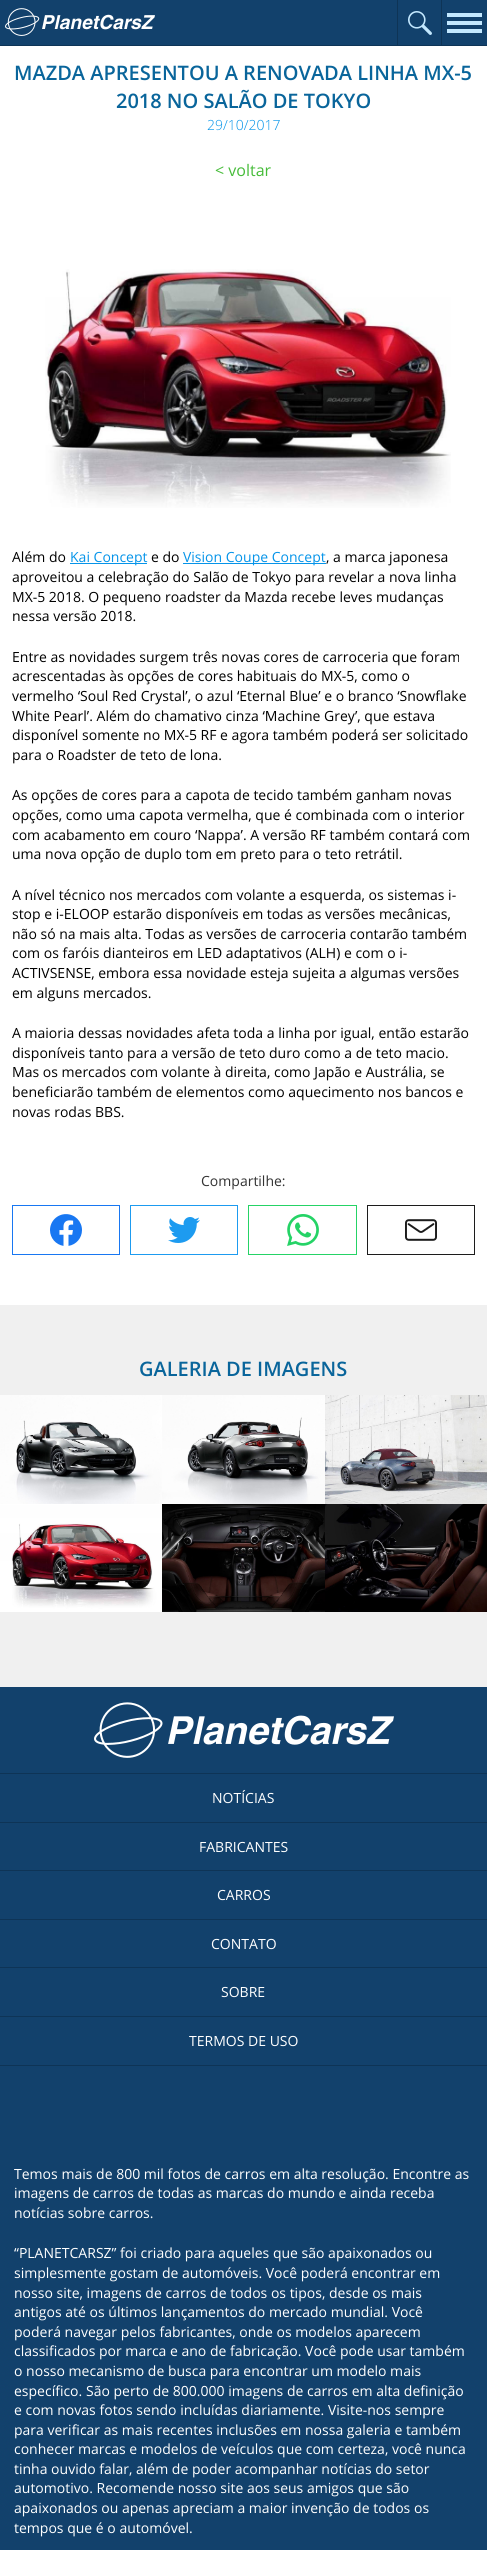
import math
import cairo

surface = cairo.ImageSurface(cairo.FORMAT_RGB24, 487, 2550)
ctx = cairo.Context(surface)
options = cairo.FontOptions()
options.set_hint_metrics(cairo.HINT_METRICS_OFF)
options.set_hint_style(cairo.HINT_STYLE_NONE)
ctx.set_font_options(options)
ctx.set_miter_limit(4)


def picture(path, x, y, w, h):
    ctx.save()
    ctx.set_source_surface(cairo.ImageSurface.create_from_png(path), x, y)
    ctx.rectangle(x, y, w, h)
    ctx.fill()
    ctx.restore()


ctx.set_source_rgb(1, 1, 1)
ctx.paint()
ctx.set_source_rgb(0.071, 0.255, 0.424)
ctx.rectangle(0, 0, 487, 45)
ctx.fill()
ctx.set_source_rgb(0.055, 0.204, 0.337)
ctx.rectangle(0, 45, 487, 1)
ctx.fill()
picture("img1.png", 5, 8, 150, 28)
ctx.rectangle(441, 0, 1, 45)
ctx.fill()
ctx.rectangle(397, 0, 1, 45)
ctx.fill()
picture("img2.png", 408, 11, 24, 24)
ctx.set_source_rgb(0.765, 0.91, 1)
ctx.rectangle(447, 21, 35, 4)
ctx.fill()
ctx.rectangle(447, 13, 35, 4)
ctx.fill()
ctx.rectangle(447, 29, 35, 4)
ctx.fill()
ctx.select_font_face("Open Sans SemiBold")
ctx.set_font_size(20)
ctx.set_source_rgb(0.039, 0.396, 0.608)
ctx.move_to(14, 80)
ctx.show_text("MAZDA APRESENTOU A RENOVADA LINHA MX-5")
ctx.move_to(116, 108)
ctx.show_text("2018 NO SALÃO DE TOKYO")
ctx.select_font_face("Open Sans Light")
ctx.set_font_size(14)
ctx.set_source_rgb(0.02, 0.58, 0.914)
ctx.move_to(207, 130)
ctx.show_text("29/10/2017")
ctx.select_font_face("Open Sans")
ctx.set_font_size(16)
ctx.set_source_rgb(0.275, 0.737, 0.224)
ctx.move_to(215, 176)
ctx.show_text("< voltar")
picture("img3.png", 45, 269, 406, 239)
ctx.set_font_size(14)
ctx.set_source_rgb(0, 0, 0)
ctx.move_to(12, 562)
ctx.show_text("Além do")
ctx.set_source_rgb(0.02, 0.58, 0.914)
ctx.rectangle(70, 563, 77, 1)
ctx.fill()
ctx.move_to(70, 562)
ctx.show_text("Kai Concept")
ctx.set_source_rgb(0, 0, 0)
ctx.move_to(151, 562)
ctx.show_text("e do")
ctx.set_source_rgb(0.02, 0.58, 0.914)
ctx.rectangle(183, 563, 143, 1)
ctx.fill()
ctx.move_to(183, 562)
ctx.show_text("Vision Coupe Concept")
ctx.set_source_rgb(0, 0, 0)
ctx.move_to(326, 562)
ctx.show_text(", a marca japonesa")
ctx.move_to(12, 582)
ctx.show_text("aproveitou a celebração do Salão de Tokyo para revelar a nova linha")
ctx.move_to(12, 602)
ctx.show_text("MX-5 2018. O pequeno roadster da Mazda recebe leves mudanças")
ctx.move_to(12, 621)
ctx.show_text("nessa versão 2018.")
ctx.move_to(12, 662)
ctx.show_text("Entre as novidades surgem três novas cores de carroceria que foram")
ctx.move_to(12, 681)
ctx.show_text("acrescentadas às opções de cores habituais do MX-5, como o")
ctx.move_to(12, 701)
ctx.show_text("vermelho ‘Soul Red Crystal’, o azul ‘Eternal Blue’ e o branco ‘Snowflake")
ctx.move_to(12, 721)
ctx.show_text("White Pearl’. Além do chamativo cinza ‘Machine Grey’, que estava")
ctx.move_to(12, 740)
ctx.show_text("disponível somente no MX-5 RF e agora também poderá ser solicitado")
ctx.move_to(12, 760)
ctx.show_text("para o Roadster de teto de lona.")
ctx.move_to(12, 800)
ctx.show_text("As opções de cores para a capota de tecido também ganham novas")
ctx.move_to(12, 820)
ctx.show_text("opções, como uma capota vermelha, que é combinada com o interior")
ctx.move_to(12, 840)
ctx.show_text("com acabamento em couro ‘Nappa’. A versão RF também contará com")
ctx.move_to(12, 859)
ctx.show_text("uma nova opção de duplo tom em preto para o teto retrátil.")
ctx.move_to(12, 900)
ctx.show_text("A nível técnico nos mercados com volante a esquerda, os sistemas i-")
ctx.move_to(12, 919)
ctx.show_text("stop e i-ELOOP estarão disponíveis em todas as versões mecânicas,")
ctx.move_to(12, 939)
ctx.show_text("não só na mais alta. Todas as versões de carroceria contarão também")
ctx.move_to(12, 958)
ctx.show_text("com os faróis dianteiros em LED adaptativos (ALH) e com o i-")
ctx.move_to(12, 978)
ctx.show_text("ACTIVSENSE, embora essa novidade esteja sujeita a algumas versões")
ctx.move_to(12, 998)
ctx.show_text("em alguns mercados.")
ctx.move_to(12, 1038)
ctx.show_text("A maioria dessas novidades afeta toda a linha por igual, então estarão")
ctx.move_to(12, 1058)
ctx.show_text("disponíveis tanto para a versão de teto duro como a de teto macio.")
ctx.move_to(12, 1077)
ctx.show_text("Mas os mercados com volante à direita, como Japão e Austrália, se")
ctx.move_to(12, 1097)
ctx.show_text("beneficiarão também de elementos como aquecimento nos bancos e")
ctx.move_to(12, 1117)
ctx.show_text("novas rodas BBS.")
ctx.set_source_rgb(0.2, 0.2, 0.2)
ctx.move_to(201, 1186)
ctx.show_text("Compartilhe:")
ctx.rectangle(12.5, 1205.5, 107, 49)
ctx.set_source_rgb(0.094, 0.467, 0.949)
ctx.set_line_width(1)
ctx.stroke()
picture("img4.png", 50, 1214, 32, 32)
ctx.rectangle(130.5, 1205.5, 107, 49)
ctx.set_source_rgb(0.114, 0.608, 0.941)
ctx.stroke()
picture("img5.png", 168, 1217, 32, 26)
ctx.rectangle(248.5, 1205.5, 108, 49)
ctx.set_source_rgb(0.145, 0.827, 0.4)
ctx.stroke()
picture("img6.png", 287, 1214, 32, 32)
ctx.rectangle(367.5, 1205.5, 107, 49)
ctx.set_source_rgb(0.11, 0.11, 0.11)
ctx.stroke()
picture("img7.png", 405, 1219, 32, 22)
ctx.set_source_rgb(0.941, 0.941, 0.941)
ctx.rectangle(0, 1305, 487, 382)
ctx.fill()
ctx.select_font_face("Open Sans SemiBold")
ctx.set_font_size(20)
ctx.set_source_rgb(0.039, 0.396, 0.608)
ctx.move_to(139, 1376)
ctx.show_text("GALERIA DE IMAGENS")
picture("img8.png", 0, 1395, 162, 109)
picture("img9.png", 162, 1395, 163, 109)
picture("img10.png", 325, 1395, 162, 109)
picture("img11.png", 0, 1504, 162, 108)
picture("img12.png", 162, 1504, 163, 108)
picture("img13.png", 325, 1504, 162, 108)
ctx.set_source_rgb(0.071, 0.255, 0.424)
ctx.rectangle(0, 1687, 487, 863)
ctx.fill()
picture("img14.png", 94, 1702, 300, 56)
ctx.set_source_rgb(0.055, 0.204, 0.337)
ctx.rectangle(0, 1773, 487, 1)
ctx.fill()
ctx.select_font_face("Open Sans")
ctx.set_font_size(14)
ctx.set_source_rgb(1, 1, 1)
ctx.move_to(212, 1803)
ctx.show_text("NOTÍCIAS")
ctx.set_source_rgb(0.055, 0.204, 0.337)
ctx.rectangle(0, 1822, 487, 1)
ctx.fill()
ctx.set_source_rgb(1, 1, 1)
ctx.move_to(199, 1852)
ctx.show_text("FABRICANTES")
ctx.set_source_rgb(0.055, 0.204, 0.337)
ctx.rectangle(0, 1870, 487, 1)
ctx.fill()
ctx.set_source_rgb(1, 1, 1)
ctx.move_to(217, 1900)
ctx.show_text("CARROS")
ctx.set_source_rgb(0.055, 0.204, 0.337)
ctx.rectangle(0, 1919, 487, 1)
ctx.fill()
ctx.set_source_rgb(1, 1, 1)
ctx.move_to(211, 1949)
ctx.show_text("CONTATO")
ctx.set_source_rgb(0.055, 0.204, 0.337)
ctx.rectangle(0, 1967, 487, 1)
ctx.fill()
ctx.set_source_rgb(1, 1, 1)
ctx.move_to(221, 1997)
ctx.show_text("SOBRE")
ctx.set_source_rgb(0.055, 0.204, 0.337)
ctx.rectangle(0, 2016, 487, 1)
ctx.fill()
ctx.rectangle(0, 2065, 487, 1)
ctx.fill()
ctx.set_source_rgb(1, 1, 1)
ctx.move_to(189, 2046)
ctx.show_text("TERMOS DE USO")
ctx.move_to(14, 2179)
ctx.show_text("Temos mais de 800 mil fotos de carros em alta resolução. Encontre as")
ctx.move_to(14, 2198)
ctx.show_text("imagens de carros de todas as marcas do mundo e ainda receba")
ctx.move_to(14, 2218)
ctx.show_text("notícias sobre carros.")
ctx.move_to(14, 2258)
ctx.show_text("“PLANETCARSZ” foi criado para aqueles que são apaixonados ou")
ctx.move_to(14, 2278)
ctx.show_text("simplesmente gostam de automóveis. Você poderá encontrar em")
ctx.move_to(14, 2298)
ctx.show_text("nosso site, imagens de carros de todos os tipos, desde os mais")
ctx.move_to(14, 2317)
ctx.show_text("antigos até os últimos lançamentos do mercado mundial. Você")
ctx.move_to(14, 2337)
ctx.show_text("poderá navegar pelos fabricantes, onde os modelos aparecem")
ctx.move_to(14, 2356)
ctx.show_text("classificados por marca e ano de fabricação. Você pode usar também")
ctx.move_to(14, 2376)
ctx.show_text("o nosso mecanismo de busca para encontrar um modelo mais")
ctx.move_to(14, 2396)
ctx.show_text("específico. São perto de 800.000 imagens de carros em alta definição")
ctx.move_to(14, 2415)
ctx.show_text("e com novas fotos sendo incluídas diariamente. Visite-nos sempre")
ctx.move_to(14, 2435)
ctx.show_text("para verificar as mais recentes inclusões em nossa galeria e também")
ctx.move_to(14, 2454)
ctx.show_text("conhecer marcas e modelos de veículos que com certeza, você nunca")
ctx.move_to(14, 2474)
ctx.show_text("tinha ouvido falar, além de poder acompanhar notícias do setor")
ctx.move_to(14, 2493)
ctx.show_text("automotivo. Recomende nosso site aos seus amigos que são")
ctx.move_to(14, 2513)
ctx.show_text("apaixonados ou apenas apreciam a maior invenção de todos os")
ctx.move_to(14, 2533)
ctx.show_text("tempos que é o automóvel.")
surface.write_to_png("page.png")
